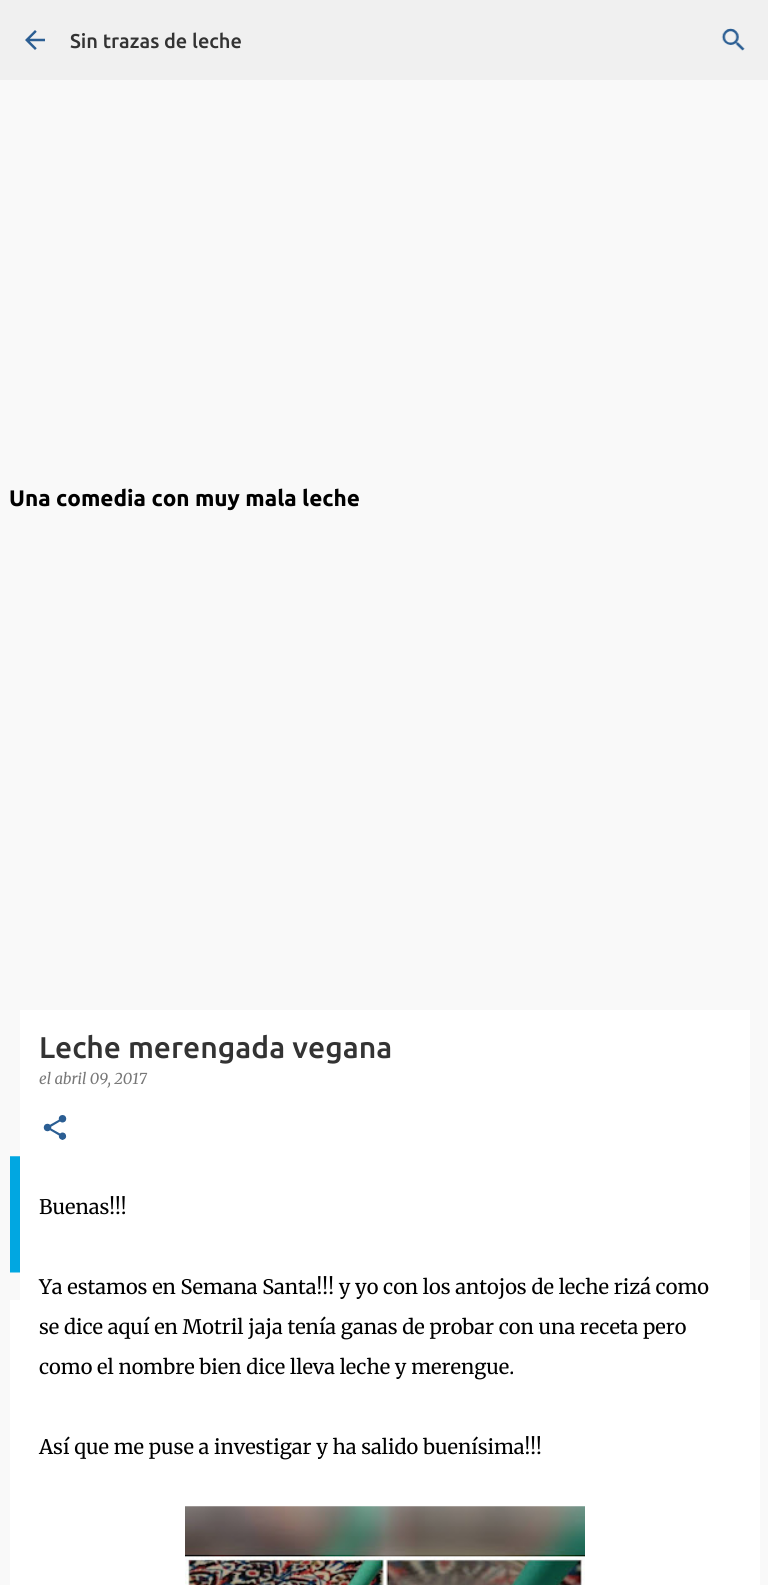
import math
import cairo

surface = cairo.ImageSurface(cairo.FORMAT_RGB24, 768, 1585)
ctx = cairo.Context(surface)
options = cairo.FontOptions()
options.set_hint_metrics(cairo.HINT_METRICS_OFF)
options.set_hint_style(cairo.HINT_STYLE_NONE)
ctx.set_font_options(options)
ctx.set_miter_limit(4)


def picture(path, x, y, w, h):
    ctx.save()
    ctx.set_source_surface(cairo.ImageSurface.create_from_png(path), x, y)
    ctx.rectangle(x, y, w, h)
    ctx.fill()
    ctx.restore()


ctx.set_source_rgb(0.973, 0.973, 0.973)
ctx.paint()
ctx.set_source_rgb(0.941, 0.941, 0.941)
ctx.rectangle(0, 0, 768, 80)
ctx.fill()
picture("img1.png", 25, 30, 20, 20)
ctx.select_font_face("Ubuntu Medium")
ctx.set_font_size(20)
ctx.set_source_rgb(0.2, 0.2, 0.2)
ctx.move_to(70, 48)
ctx.show_text("Sin trazas de leche")
picture("img2.png", 721, 28, 24, 23)
ctx.select_font_face("Ubuntu", cairo.FONT_SLANT_NORMAL, cairo.FONT_WEIGHT_BOLD)
ctx.set_font_size(22.5)
ctx.set_source_rgb(0, 0, 0)
ctx.move_to(9, 506)
ctx.show_text("Una comedia con muy mala leche")
picture("img3.png", 10, 1156, 10, 117)
ctx.set_source_rgb(1, 1, 1)
ctx.rectangle(10, 1300, 750, 285)
ctx.fill()
ctx.rectangle(20, 1010, 730, 290)
ctx.fill()
ctx.select_font_face("Ubuntu Medium")
ctx.set_font_size(30)
ctx.set_source_rgb(0.2, 0.2, 0.2)
ctx.move_to(39, 1058)
ctx.show_text("Leche merengada vegana")
ctx.select_font_face("Merriweather", cairo.FONT_SLANT_ITALIC)
ctx.set_font_size(15)
ctx.set_source_rgb(0.467, 0.467, 0.467)
ctx.move_to(39, 1084)
ctx.show_text("el abril 09, 2017")
picture("img4.png", 43, 1115, 24, 25)
ctx.select_font_face("Merriweather Light")
ctx.set_font_size(20)
ctx.set_source_rgb(0, 0, 0)
ctx.move_to(39, 1214)
ctx.show_text("Buenas!!!")
ctx.move_to(39, 1294)
ctx.show_text("Ya estamos en Semana Santa!!! y yo con los antojos de leche rizá como")
ctx.move_to(39, 1334)
ctx.show_text("se dice aquí en Motril jaja tenía ganas de probar con una receta pero")
ctx.move_to(39, 1374)
ctx.show_text("como el nombre bien dice lleva leche y merengue.")
ctx.move_to(39, 1454)
ctx.show_text("Así que me puse a investigar y ha salido buenísima!!!")
picture("img5.png", 185, 1506, 400, 79)
surface.write_to_png("page.png")
